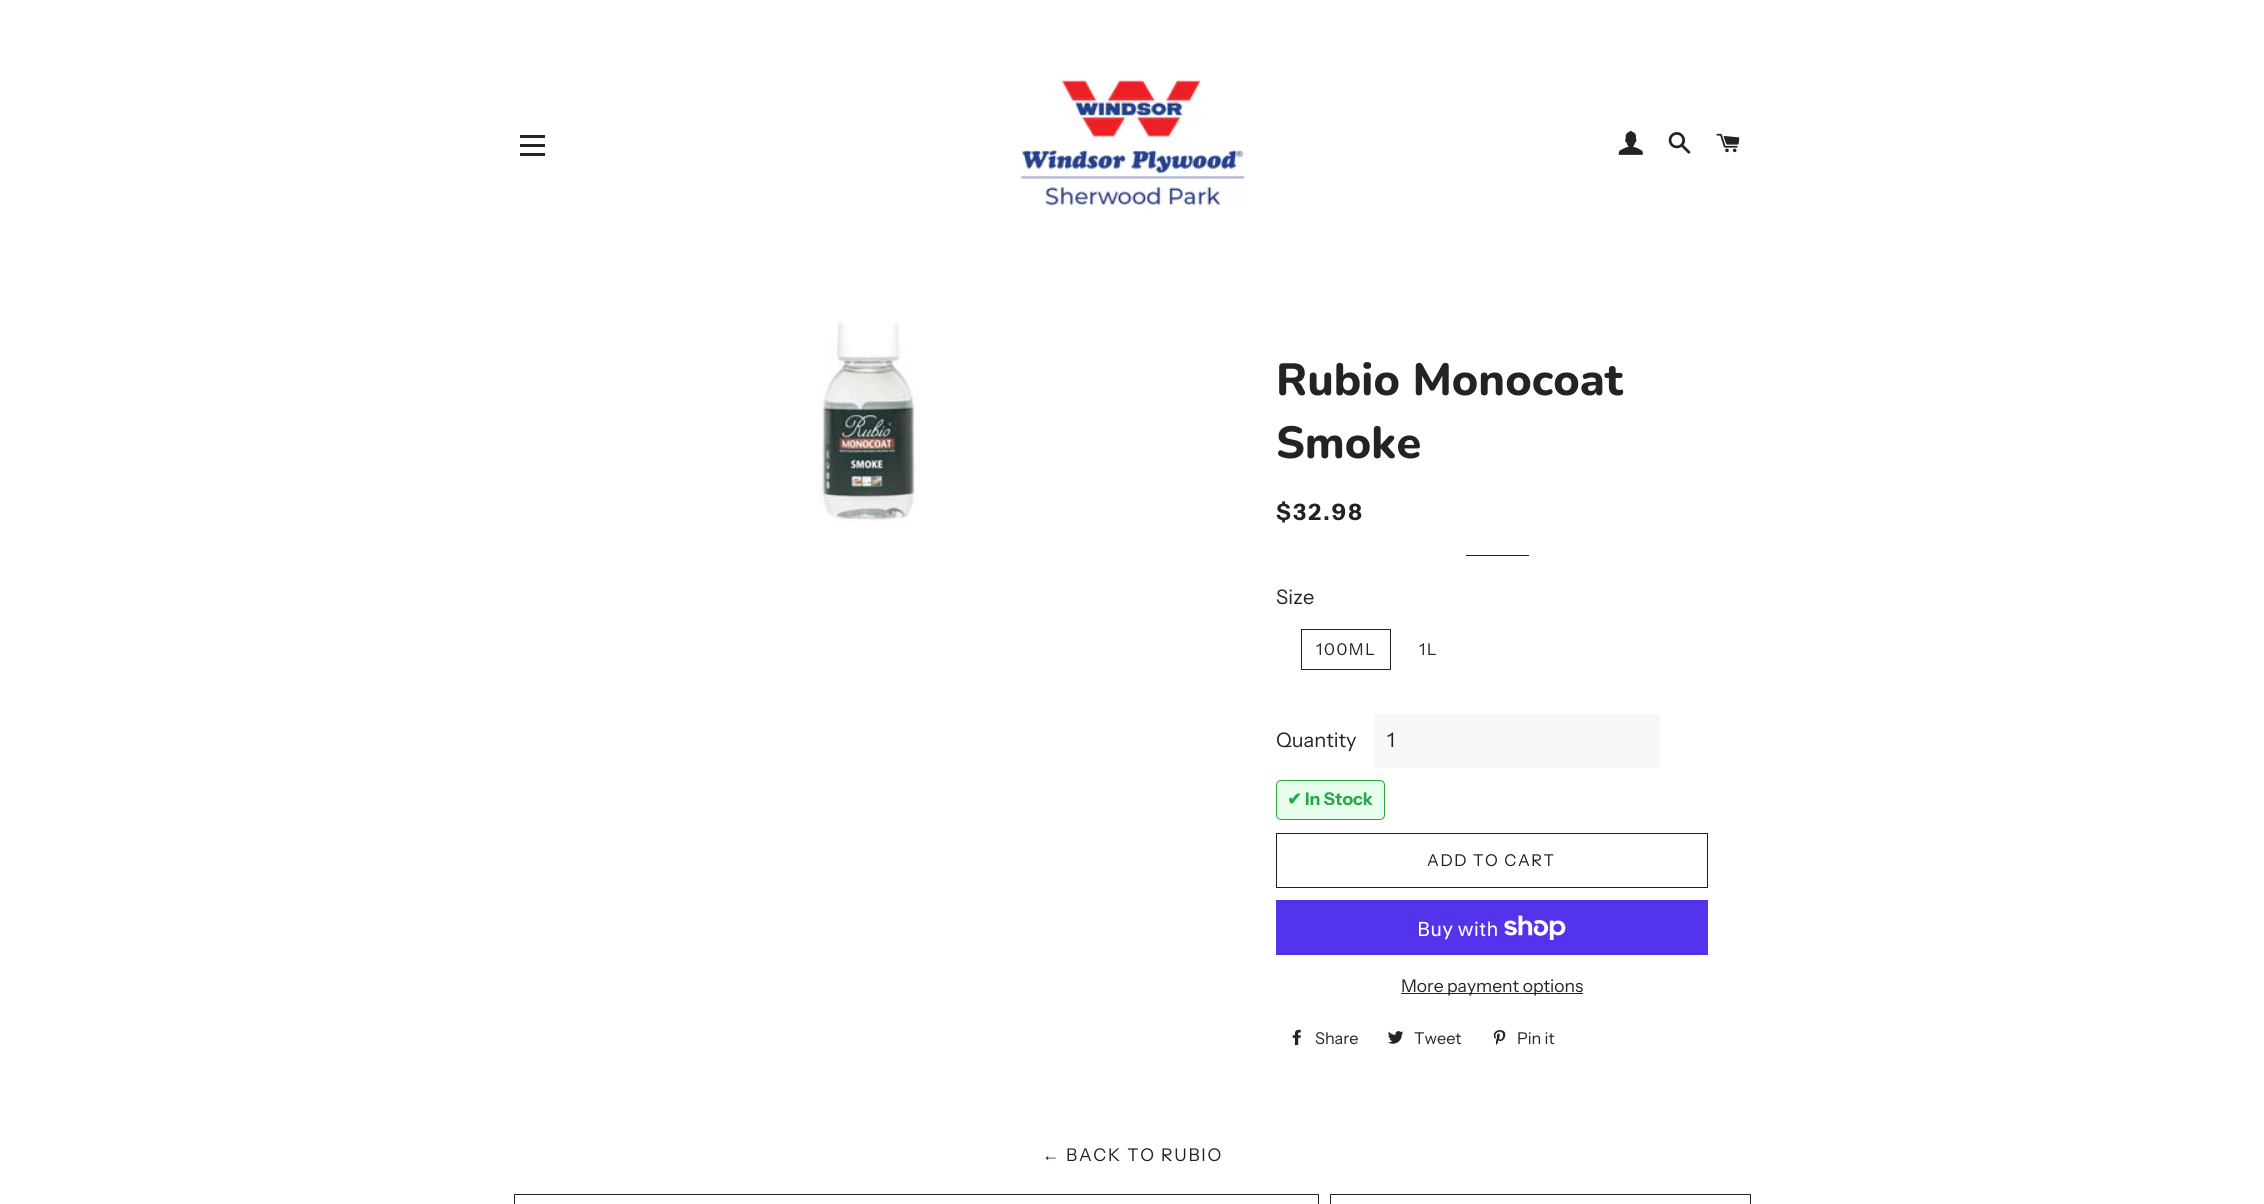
import math
import cairo

surface = cairo.ImageSurface(cairo.FORMAT_RGB24, 2264, 1204)
ctx = cairo.Context(surface)
options = cairo.FontOptions()
options.set_hint_metrics(cairo.HINT_METRICS_OFF)
options.set_hint_style(cairo.HINT_STYLE_NONE)
ctx.set_font_options(options)
ctx.set_miter_limit(4)


def spaced_text(x, y, s, letter, word):
    ctx.move_to(x, y)
    for ch in s:
        ctx.show_text(ch)
        ctx.rel_move_to(letter + word * (ch == ' '), 0)


def round_rect(x, y, w, h, r):
    ctx.new_sub_path()
    for i, (u, v) in enumerate([(x + w - r, y + h - r), (x + r, y + h - r), (x + r, y + r), (x + w - r, y + r)]):
        ctx.arc(u, v, r, i * math.pi / 2, (i + 1) * math.pi / 2)
    ctx.close_path()


def picture(path, x, y, w, h):
    ctx.save()
    ctx.set_source_surface(cairo.ImageSurface.create_from_png(path), x, y)
    ctx.rectangle(x, y, w, h)
    ctx.fill()
    ctx.restore()


ctx.set_source_rgb(1, 1, 1)
ctx.paint()
ctx.set_source_rgb(0.133, 0.137, 0.137)
ctx.rectangle(520, 135, 25, 3)
ctx.fill()
ctx.rectangle(520, 144, 25, 3)
ctx.fill()
ctx.rectangle(520, 153, 25, 3)
ctx.fill()
picture("img1.png", 1018, 79, 228, 130)
picture("img2.png", 1618, 130, 25, 25)
picture("img3.png", 1668, 132, 23, 22)
picture("img4.png", 1716, 133, 24, 20)
picture("img5.png", 819, 321, 100, 203)
ctx.select_font_face("Nunito ExtraBold")
ctx.set_font_size(45)
ctx.move_to(1276, 395)
ctx.show_text("Rubio Monocoat")
ctx.move_to(1276, 458)
ctx.show_text("Smoke")
ctx.select_font_face("Instrument Sans", cairo.FONT_SLANT_NORMAL, cairo.FONT_WEIGHT_BOLD)
ctx.set_font_size(22.5)
spaced_text(1276, 520, "$32.98", 2.25, 0)
ctx.set_source_rgb(0.11, 0.114, 0.114)
ctx.rectangle(1466, 555, 63, 1)
ctx.fill()
ctx.select_font_face("Instrument Sans")
ctx.set_font_size(20)
ctx.set_source_rgb(0.133, 0.137, 0.137)
ctx.move_to(1276, 604)
ctx.show_text("Size")
ctx.rectangle(1301.5, 629.5, 89, 40)
ctx.set_line_width(1)
ctx.stroke()
ctx.set_font_size(16.25)
spaced_text(1316, 655, "100ML", 1.6, 0)
spaced_text(1419, 655, "1L", 1.6, 0)
ctx.set_font_size(20)
ctx.move_to(1276, 747)
ctx.show_text("Quantity")
ctx.set_source_rgb(0.965, 0.965, 0.965)
ctx.rectangle(1374, 714, 286, 54)
ctx.fill()
ctx.set_source_rgb(0.11, 0.114, 0.114)
spaced_text(1387, 747, "1", 2, 0)
ctx.set_source_rgb(0.902, 1, 0.929)
round_rect(1276.5, 780.5, 108, 39, 4.5)
ctx.fill_preserve()
ctx.set_source_rgb(0.157, 0.655, 0.271)
ctx.stroke()
ctx.select_font_face("DejaVu Sans", cairo.FONT_SLANT_NORMAL, cairo.FONT_WEIGHT_BOLD)
ctx.set_font_size(17.5)
ctx.move_to(1287, 805)
ctx.show_text("✔")
ctx.select_font_face("Instrument Sans", cairo.FONT_SLANT_NORMAL, cairo.FONT_WEIGHT_BOLD)
ctx.move_to(1305, 805)
ctx.show_text("In Stock")
ctx.rectangle(1276.5, 833.5, 431, 54)
ctx.set_source_rgb(0.11, 0.114, 0.114)
ctx.stroke()
ctx.select_font_face("Instrument Sans")
ctx.set_font_size(16.25)
spaced_text(1427, 866, "ADD TO CART", 1.6, 0)
ctx.set_source_rgb(0.329, 0.2, 0.922)
ctx.rectangle(1276, 900, 432, 55)
ctx.fill()
ctx.select_font_face("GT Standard")
ctx.set_font_size(20)
ctx.set_source_rgb(1, 1, 1)
ctx.move_to(1417, 936)
ctx.show_text("Buy with")
picture("img6.png", 1504, 915, 62, 25)
ctx.set_source_rgb(0.133, 0.137, 0.137)
ctx.rectangle(1401, 993, 182, 1)
ctx.fill()
ctx.select_font_face("Instrument Sans")
ctx.set_font_size(17.5)
ctx.move_to(1401, 992)
ctx.show_text("More payment options")
picture("img7.png", 1292, 1029, 9, 17)
ctx.set_font_size(16.25)
ctx.move_to(1315, 1044)
ctx.show_text("Share")
picture("img8.png", 1388, 1031, 16, 13)
ctx.move_to(1414, 1044)
ctx.show_text("Tweet")
picture("img9.png", 1493, 1030, 13, 15)
ctx.move_to(1517, 1044)
ctx.show_text("Pin it")
ctx.select_font_face("Liberation Sans")
ctx.set_font_size(17.5)
spaced_text(1042, 1161, "←", 1.75, 0)
ctx.select_font_face("Instrument Sans")
spaced_text(1066, 1161, "BACK TO RUBIO", 1.75, 0)
ctx.rectangle(514.5, 1194.5, 804, 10)
ctx.stroke()
ctx.rectangle(1330.5, 1194.5, 420, 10)
ctx.stroke()
surface.write_to_png("page.png")
